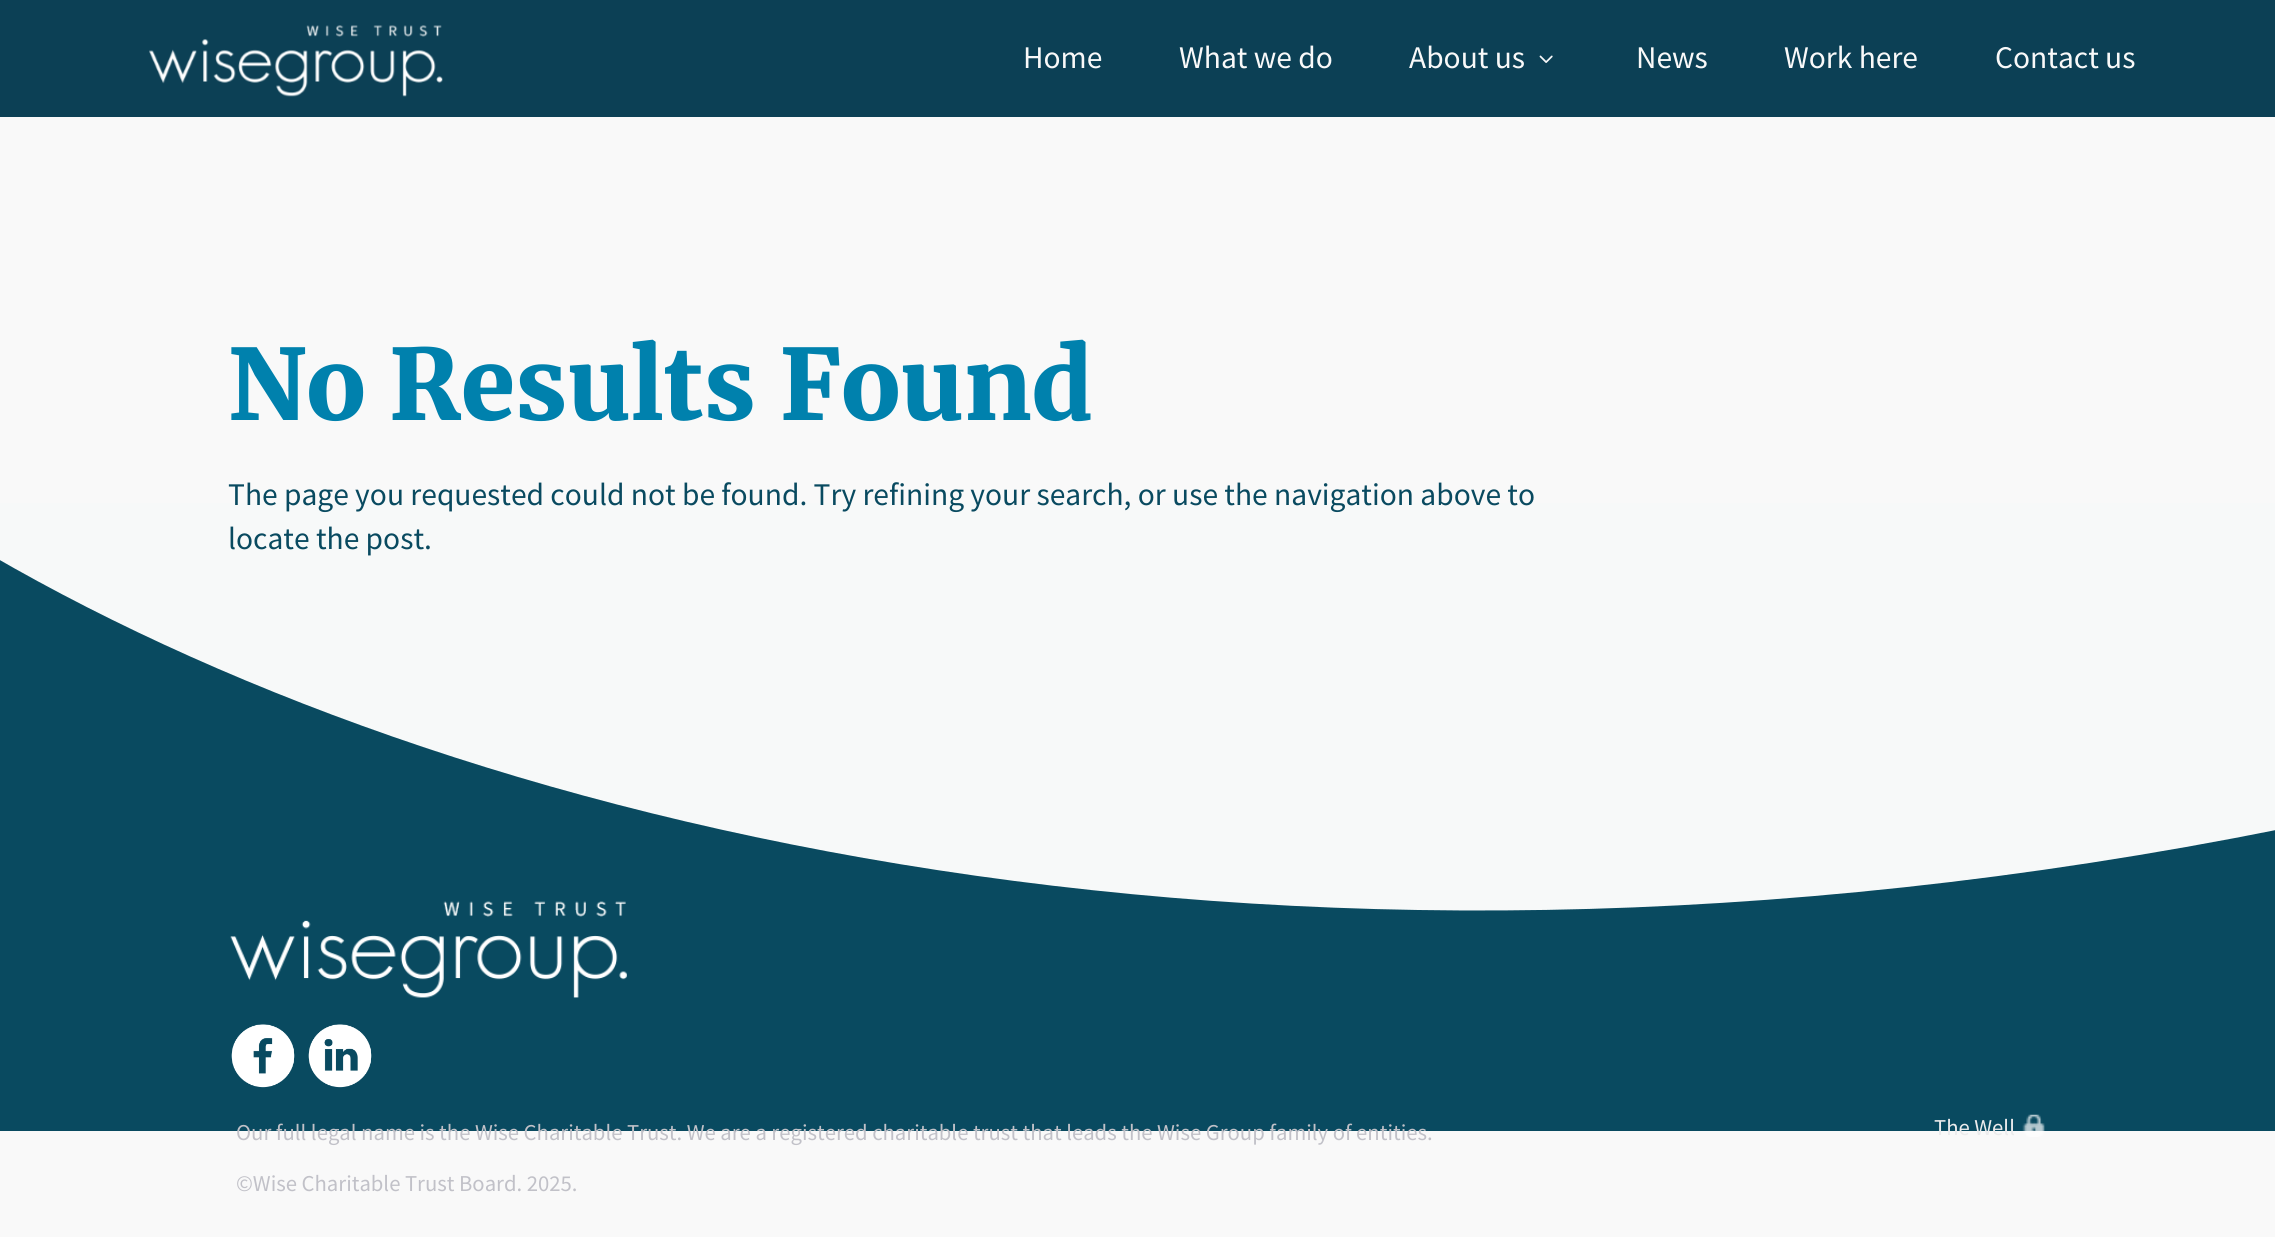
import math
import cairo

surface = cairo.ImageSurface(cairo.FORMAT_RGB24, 2275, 1237)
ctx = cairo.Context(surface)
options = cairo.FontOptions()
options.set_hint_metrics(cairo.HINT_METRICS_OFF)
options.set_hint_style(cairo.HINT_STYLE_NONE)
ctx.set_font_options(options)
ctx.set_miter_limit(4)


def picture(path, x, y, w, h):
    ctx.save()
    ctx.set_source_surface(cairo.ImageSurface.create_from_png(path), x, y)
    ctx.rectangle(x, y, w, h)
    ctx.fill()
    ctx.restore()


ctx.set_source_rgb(0.973, 0.973, 0.976)
ctx.paint()
ctx.set_source_rgb(0.047, 0.251, 0.333)
ctx.rectangle(0, 0, 2275, 117)
ctx.fill()
picture("img1.png", 149, 25, 294, 72)
ctx.select_font_face("Source Sans Pro")
ctx.set_font_size(31.5)
ctx.set_source_rgb(0.973, 0.973, 0.976)
ctx.move_to(1023, 68)
ctx.show_text("Home")
ctx.move_to(1179, 68)
ctx.show_text("What we do")
ctx.move_to(1409, 68)
ctx.show_text("About us")
picture("img2.png", 1539, 55, 14, 8)
ctx.move_to(1636, 68)
ctx.show_text("News")
ctx.move_to(1784, 68)
ctx.show_text("Work here")
ctx.move_to(1995, 68)
ctx.show_text("Contact us")
ctx.select_font_face("Merriweather Light")
ctx.set_font_size(98)
ctx.set_source_rgb(0, 0.506, 0.678)
ctx.move_to(228, 420)
ctx.show_text("No Results Found")
ctx.set_source_rgb(0.039, 0.29, 0.376)
ctx.rectangle(0, 560, 2275, 571)
ctx.fill()
ctx.set_source_rgb(0.965, 0.973, 0.976)
ctx.new_path()
ctx.move_to(-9, 553)
ctx.line_to(-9, 555)
ctx.curve_to(479, 838, 1333, 1043, 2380, 808)
ctx.line_to(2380, 503)
ctx.line_to(-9, 503)
ctx.close_path()
ctx.fill()
ctx.select_font_face("Source Sans Pro")
ctx.set_font_size(31.5)
ctx.set_source_rgb(0.039, 0.29, 0.376)
ctx.move_to(228, 505)
ctx.show_text("The page you requested could not be found. Try refining your search, or use the navigation above to")
ctx.move_to(228, 549)
ctx.show_text("locate the post.")
picture("img3.png", 230, 901, 397, 97)
picture("img4.png", 231, 1024, 64, 64)
picture("img5.png", 308, 1024, 64, 64)
ctx.set_font_size(22.68)
ctx.set_source_rgb(0.757, 0.757, 0.784)
ctx.move_to(236, 1140)
ctx.show_text("Our full legal name is the Wise Charitable Trust. We are a registered charitable trust that leads the Wise Group family of entities.")
ctx.move_to(236, 1191)
ctx.show_text("©Wise Charitable Trust Board. 2025.")
ctx.set_source_rgb(0.918, 0.918, 0.925)
ctx.move_to(1934, 1135)
ctx.show_text("The Well")
picture("img6.png", 2022, 1114, 23, 23)
surface.write_to_png("page.png")
